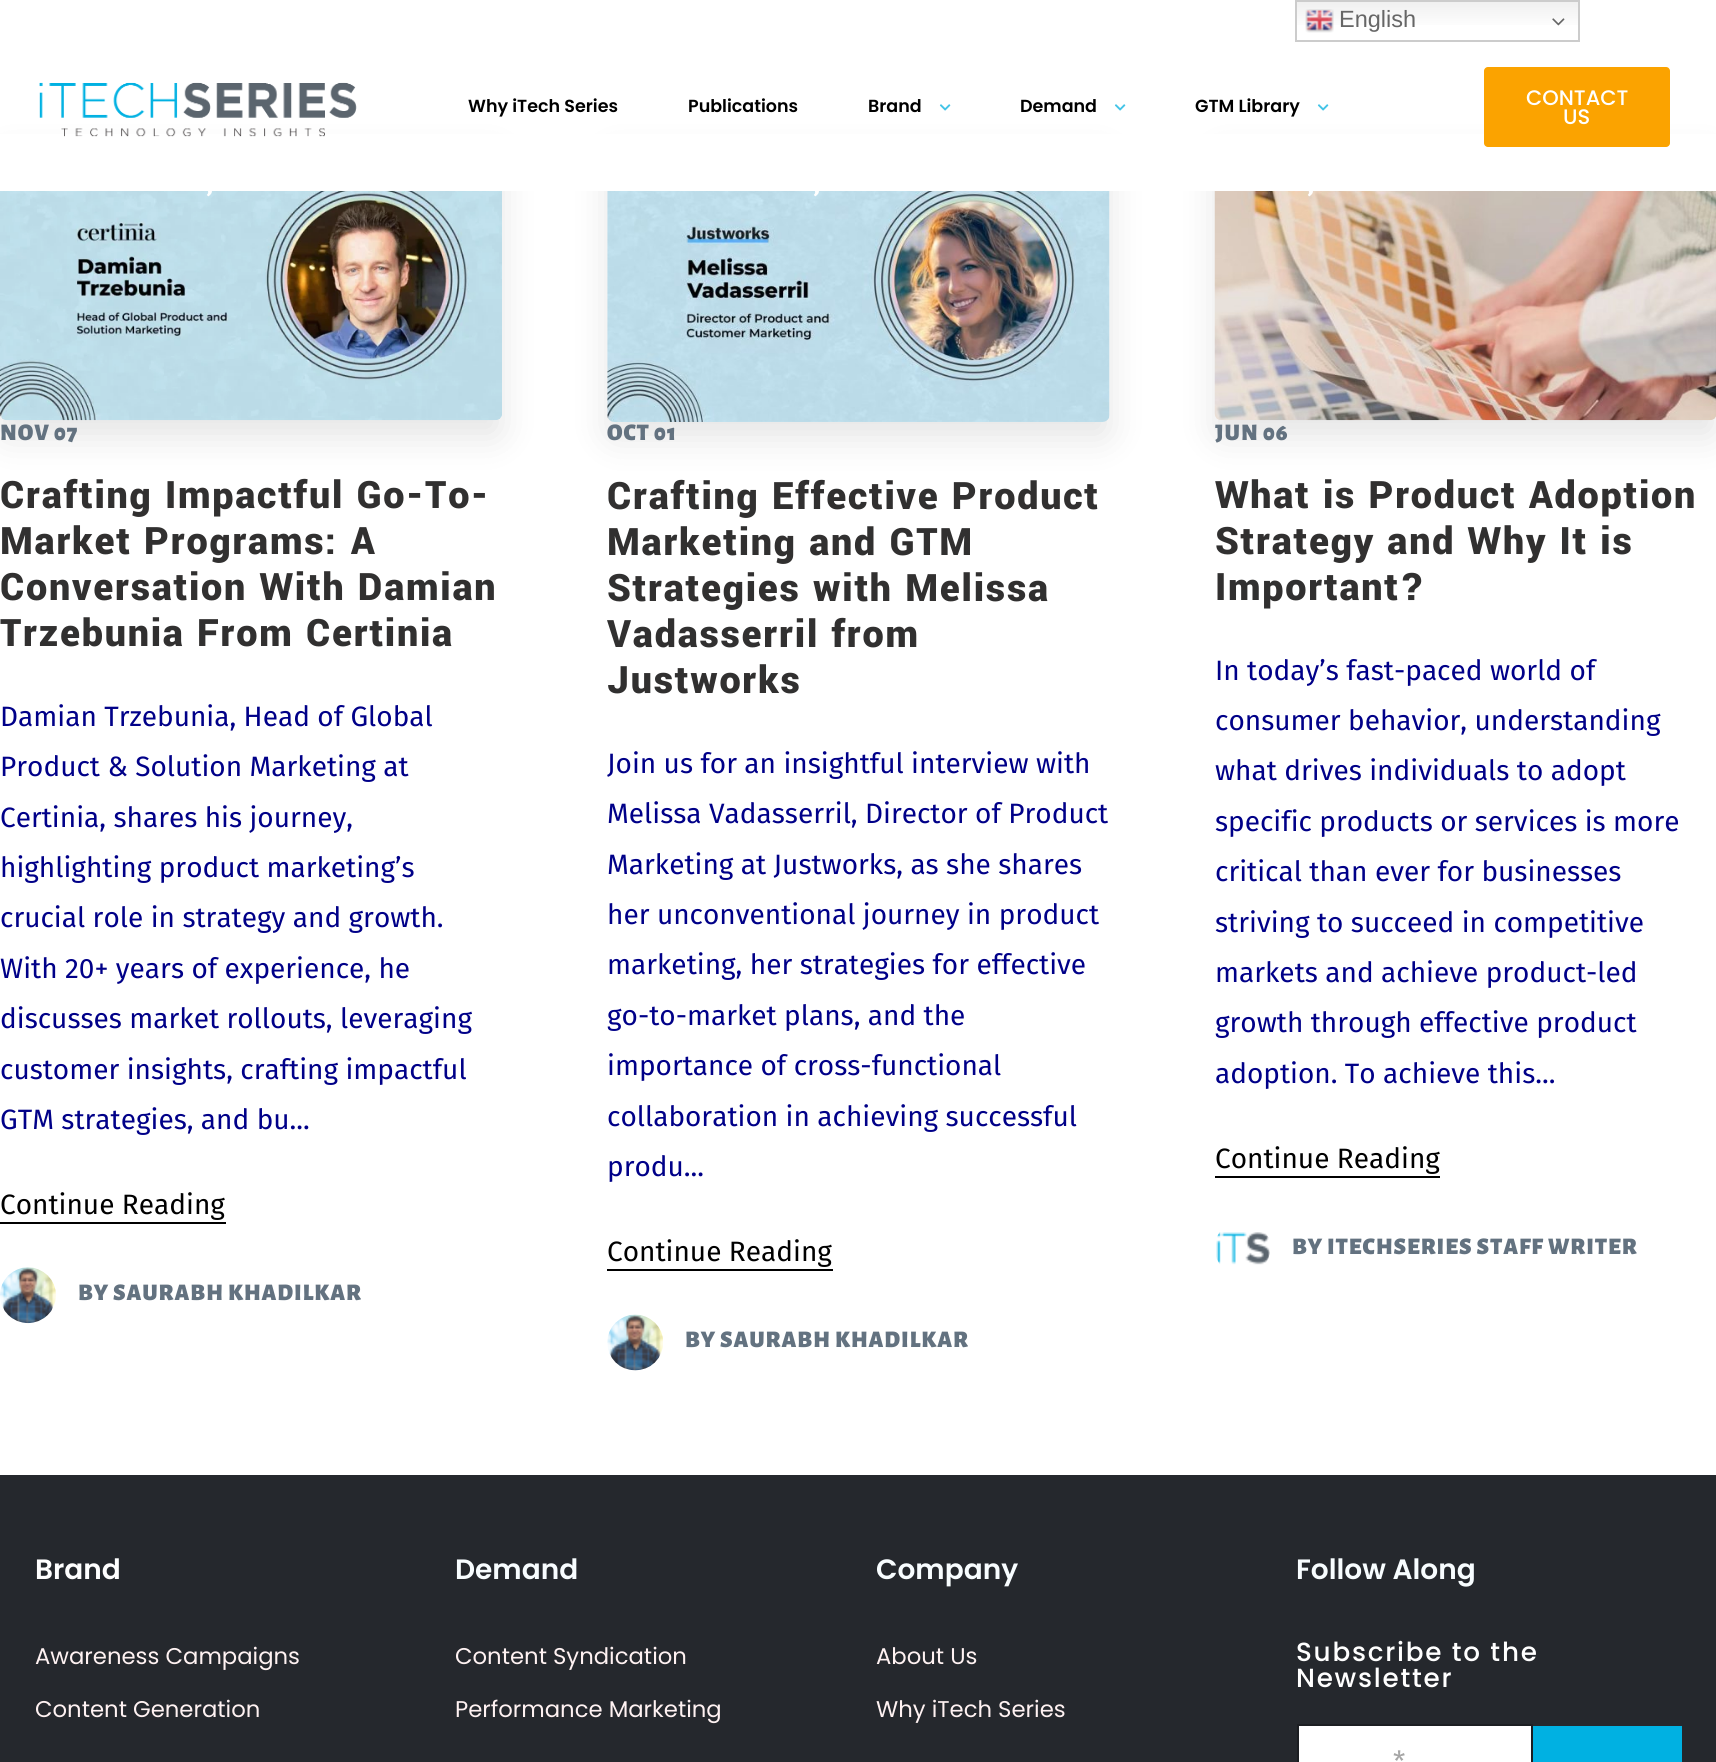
import math
import cairo

surface = cairo.ImageSurface(cairo.FORMAT_RGB24, 1716, 1762)
ctx = cairo.Context(surface)
options = cairo.FontOptions()
options.set_hint_metrics(cairo.HINT_METRICS_OFF)
options.set_hint_style(cairo.HINT_STYLE_NONE)
ctx.set_font_options(options)
ctx.set_miter_limit(4)


def spaced_text(x, y, s, letter, word):
    ctx.move_to(x, y)
    for ch in s:
        ctx.show_text(ch)
        ctx.rel_move_to(letter + word * (ch == ' '), 0)


def round_rect(x, y, w, h, r):
    ctx.new_sub_path()
    for i, (u, v) in enumerate([(x + w - r, y + h - r), (x + r, y + h - r), (x + r, y + r), (x + w - r, y + r)]):
        ctx.arc(u, v, r, i * math.pi / 2, (i + 1) * math.pi / 2)
    ctx.close_path()


def shadow(x, y, w, h, r, blur, alpha):
    ctx.push_group_with_content(cairo.CONTENT_ALPHA)
    ctx.set_operator(cairo.OPERATOR_SOURCE)
    for i in range(15, -16, -2):
        e = blur * i / 6
        if min(w, h) + 2 * e > 0:
            ctx.set_source_rgba(0, 0, 0, alpha * math.erfc((i - 1) / 8.5) / 2)
            round_rect(x - e, y - e, w + 2 * e, h + 2 * e, max(0, min(r + e + blur * .6, min(w, h) / 2 + e)))
            ctx.fill()
    ctx.mask(ctx.pop_group())


def picture(path, x, y, w, h):
    ctx.save()
    ctx.set_source_surface(cairo.ImageSurface.create_from_png(path), x, y)
    ctx.rectangle(x, y, w, h)
    ctx.fill()
    ctx.restore()


ctx.set_source_rgb(1, 1, 1)
ctx.paint()
gradient = cairo.LinearGradient(1438, 0, 1438, 42)
gradient.add_color_stop_rgba(0, 0.937, 0.937, 0.937, 1)
gradient.add_color_stop_rgba(0.7, 1, 1, 1, 1)
ctx.set_source(gradient)
ctx.rectangle(1297, 2, 281, 23)
ctx.fill()
ctx.rectangle(1296, 1, 283, 40)
ctx.set_source_rgb(0.8, 0.8, 0.8)
ctx.stroke()
picture("img1.png", 1305, 9, 29, 24)
ctx.select_font_face("Liberation Sans")
ctx.set_font_size(23.5)
ctx.set_source_rgb(0.4, 0.4, 0.4)
ctx.move_to(1339, 27)
ctx.show_text("English")
picture("img2.png", 1552, 18, 13, 8)
ctx.set_source_rgb(0, 0, 0)
shadow(0, 156, 502, 282, 7, 17.5, 0.1)
shadow(607, 156, 503, 283, 7, 17.5, 0.1)
shadow(1215, 156, 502, 282, 7, 17.5, 0.1)
ctx.set_source_rgb(1, 1, 1)
ctx.rectangle(0, 134, 1716, 57)
ctx.fill()
picture("img3.png", 39, 82, 318, 55)
ctx.select_font_face("Poppins SemiBold")
ctx.set_font_size(17.5)
ctx.set_source_rgb(0, 0, 0)
ctx.move_to(468, 112)
ctx.show_text("Why iTech Series")
ctx.move_to(688, 112)
ctx.show_text("Publications")
ctx.move_to(868, 112)
ctx.show_text("Brand")
picture("img4.png", 939, 104, 12, 7)
ctx.move_to(1020, 112)
ctx.show_text("Demand")
picture("img4.png", 1114, 104, 12, 7)
ctx.move_to(1195, 112)
ctx.show_text("GTM Library")
picture("img4.png", 1317, 104, 12, 7)
ctx.set_source_rgb(0.984, 0.639, 0)
round_rect(1484, 67, 186, 80, 4)
ctx.fill()
ctx.select_font_face("Poppins Medium")
ctx.set_font_size(21)
ctx.set_source_rgb(1, 1, 1)
ctx.move_to(1526, 105)
ctx.show_text("CONTACT")
ctx.move_to(1563, 124)
ctx.show_text("US")
picture("img5.png", 0, 191, 502, 230)
ctx.select_font_face("Alegreya Sans Black")
ctx.set_font_size(23.75)
spaced_text(207, 193, ",", 0.9, 0)
ctx.set_source_rgb(0.388, 0.447, 0.502)
spaced_text(0, 440, "NOV 07", 0.9, 0)
ctx.select_font_face("Yantramanav Black")
ctx.set_font_size(42)
ctx.set_source_rgb(0.192, 0.188, 0.188)
spaced_text(0, 508, "Crafting Impactful Go-To-", 1.75, 0)
spaced_text(0, 554, "Market Programs: A", 1.75, 0)
spaced_text(0, 600, "Conversation With Damian", 1.75, 0)
spaced_text(0, 646, "Trzebunia From Certinia", 1.75, 0)
ctx.select_font_face("Fira Sans")
ctx.set_font_size(28)
ctx.set_source_rgb(0, 0, 0.533)
ctx.move_to(0, 726)
ctx.show_text("Damian Trzebunia, Head of Global")
ctx.move_to(0, 776)
ctx.show_text("Product & Solution Marketing at")
ctx.move_to(0, 827)
ctx.show_text("Certinia, shares his journey,")
ctx.move_to(0, 877)
ctx.show_text("highlighting product marketing’s")
ctx.move_to(0, 927)
ctx.show_text("crucial role in strategy and growth.")
ctx.move_to(0, 978)
ctx.show_text("With 20+ years of experience, he")
ctx.move_to(0, 1028)
ctx.show_text("discusses market rollouts, leveraging")
ctx.move_to(0, 1079)
ctx.show_text("customer insights, crafting impactful")
ctx.move_to(0, 1129)
ctx.show_text("GTM strategies, and bu...")
ctx.set_source_rgb(0, 0, 0)
ctx.move_to(0, 1214)
ctx.show_text("Continue Reading")
ctx.rectangle(0, 1222, 226, 2)
ctx.fill()
picture("img6.png", 0, 1267, 56, 57)
ctx.select_font_face("Alegreya Sans Black")
ctx.set_font_size(23.75)
ctx.set_source_rgb(0.388, 0.447, 0.502)
spaced_text(78, 1300, "BY SAURABH KHADILKAR", 0.9, 0)
picture("img7.png", 607, 191, 503, 231)
ctx.set_source_rgb(1, 1, 1)
spaced_text(814, 193, ",", 0.9, 0)
ctx.set_source_rgb(0.388, 0.447, 0.502)
spaced_text(607, 440, "OCT 01", 0.9, 0)
ctx.select_font_face("Yantramanav Black")
ctx.set_font_size(42)
ctx.set_source_rgb(0.192, 0.188, 0.188)
spaced_text(607, 509, "Crafting Effective Product", 1.75, 0)
spaced_text(607, 555, "Marketing and GTM", 1.75, 0)
spaced_text(607, 601, "Strategies with Melissa", 1.75, 0)
spaced_text(607, 647, "Vadasserril from", 1.75, 0)
spaced_text(607, 693, "Justworks", 1.75, 0)
ctx.select_font_face("Fira Sans")
ctx.set_font_size(28)
ctx.set_source_rgb(0, 0, 0.533)
ctx.move_to(607, 773)
ctx.show_text("Join us for an insightful interview with")
ctx.move_to(607, 823)
ctx.show_text("Melissa Vadasserril, Director of Product")
ctx.move_to(607, 874)
ctx.show_text("Marketing at Justworks, as she shares")
ctx.move_to(607, 924)
ctx.show_text("her unconventional journey in product")
ctx.move_to(607, 974)
ctx.show_text("marketing, her strategies for effective")
ctx.move_to(607, 1025)
ctx.show_text("go-to-market plans, and the")
ctx.move_to(607, 1075)
ctx.show_text("importance of cross-functional")
ctx.move_to(607, 1126)
ctx.show_text("collaboration in achieving successful")
ctx.move_to(607, 1176)
ctx.show_text("produ...")
ctx.set_source_rgb(0, 0, 0)
ctx.move_to(607, 1261)
ctx.show_text("Continue Reading")
ctx.rectangle(607, 1269, 226, 2)
ctx.fill()
picture("img8.png", 607, 1314, 56, 57)
ctx.select_font_face("Alegreya Sans Black")
ctx.set_font_size(23.75)
ctx.set_source_rgb(0.388, 0.447, 0.502)
spaced_text(685, 1347, "BY SAURABH KHADILKAR", 0.9, 0)
picture("img9.png", 1214, 191, 502, 230)
ctx.set_source_rgb(1, 1, 1)
spaced_text(1308, 193, ",", 0.9, 0)
ctx.set_source_rgb(0.388, 0.447, 0.502)
spaced_text(1215, 440, "JUN 06", 0.9, 0)
ctx.select_font_face("Yantramanav Black")
ctx.set_font_size(42)
ctx.set_source_rgb(0.192, 0.188, 0.188)
spaced_text(1215, 508, "What is Product Adoption", 1.75, 0)
spaced_text(1215, 554, "Strategy and Why It is", 1.75, 0)
spaced_text(1215, 600, "Important?", 1.75, 0)
ctx.select_font_face("Fira Sans")
ctx.set_font_size(28)
ctx.set_source_rgb(0, 0, 0.533)
ctx.move_to(1215, 680)
ctx.show_text("In today’s fast-paced world of")
ctx.move_to(1215, 730)
ctx.show_text("consumer behavior, understanding")
ctx.move_to(1215, 780)
ctx.show_text("what drives individuals to adopt")
ctx.move_to(1215, 831)
ctx.show_text("specific products or services is more")
ctx.move_to(1215, 881)
ctx.show_text("critical than ever for businesses")
ctx.move_to(1215, 932)
ctx.show_text("striving to succeed in competitive")
ctx.move_to(1215, 982)
ctx.show_text("markets and achieve product-led")
ctx.move_to(1215, 1032)
ctx.show_text("growth through effective product")
ctx.move_to(1215, 1083)
ctx.show_text("adoption. To achieve this...")
ctx.set_source_rgb(0, 0, 0)
ctx.move_to(1215, 1168)
ctx.show_text("Continue Reading")
ctx.rectangle(1215, 1176, 225, 2)
ctx.fill()
picture("img10.png", 1216, 1232, 54, 33)
ctx.select_font_face("Alegreya Sans Black")
ctx.set_font_size(23.75)
ctx.set_source_rgb(0.388, 0.447, 0.502)
spaced_text(1292, 1254, "BY ITECHSERIES STAFF WRITER", 0.9, 0)
ctx.set_source_rgb(0.145, 0.157, 0.176)
ctx.rectangle(0, 1475, 1716, 287)
ctx.fill()
ctx.select_font_face("Poppins SemiBold")
ctx.set_font_size(28)
ctx.set_source_rgb(1, 1, 1)
ctx.move_to(35, 1579)
ctx.show_text("Brand")
ctx.select_font_face("Poppins")
ctx.set_font_size(22.75)
ctx.set_source_rgb(1, 0.949, 0.949)
ctx.move_to(35, 1664)
ctx.show_text("Awareness Campaigns")
ctx.move_to(35, 1717)
ctx.show_text("Content Generation")
ctx.select_font_face("Poppins SemiBold")
ctx.set_font_size(28)
ctx.set_source_rgb(0.969, 0.992, 1)
ctx.move_to(455, 1579)
ctx.show_text("Demand")
ctx.select_font_face("Poppins")
ctx.set_font_size(22.75)
ctx.set_source_rgb(1, 0.949, 0.949)
ctx.move_to(455, 1664)
ctx.show_text("Content Syndication")
ctx.move_to(455, 1717)
ctx.show_text("Performance Marketing")
ctx.select_font_face("Poppins SemiBold")
ctx.set_font_size(28)
ctx.set_source_rgb(0.969, 0.992, 1)
ctx.move_to(876, 1579)
ctx.show_text("Company")
ctx.select_font_face("Poppins")
ctx.set_font_size(22.75)
ctx.set_source_rgb(1, 0.949, 0.949)
ctx.move_to(876, 1664)
ctx.show_text("About Us")
ctx.move_to(876, 1717)
ctx.show_text("Why iTech Series")
ctx.select_font_face("Poppins SemiBold")
ctx.set_font_size(28)
ctx.set_source_rgb(0.969, 0.992, 1)
ctx.move_to(1296, 1579)
ctx.show_text("Follow Along")
ctx.select_font_face("Poppins Medium")
ctx.set_font_size(26.25)
ctx.set_source_rgb(1, 1, 1)
spaced_text(1296, 1661, "Subscribe to the", 1.75, 0)
spaced_text(1296, 1687, "Newsletter", 1.75, 0)
ctx.rectangle(1298, 1725, 234, 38)
ctx.fill_preserve()
ctx.set_source_rgb(0.11, 0.118, 0.133)
ctx.stroke()
ctx.select_font_face("Fira Sans")
ctx.set_font_size(28)
ctx.set_source_rgb(0.651, 0.651, 0.651)
ctx.move_to(1393, 1771)
ctx.show_text("*")
ctx.set_source_rgb(0, 0.694, 0.886)
ctx.rectangle(1533, 1726, 149, 36)
ctx.fill()
surface.write_to_png("page.png")
